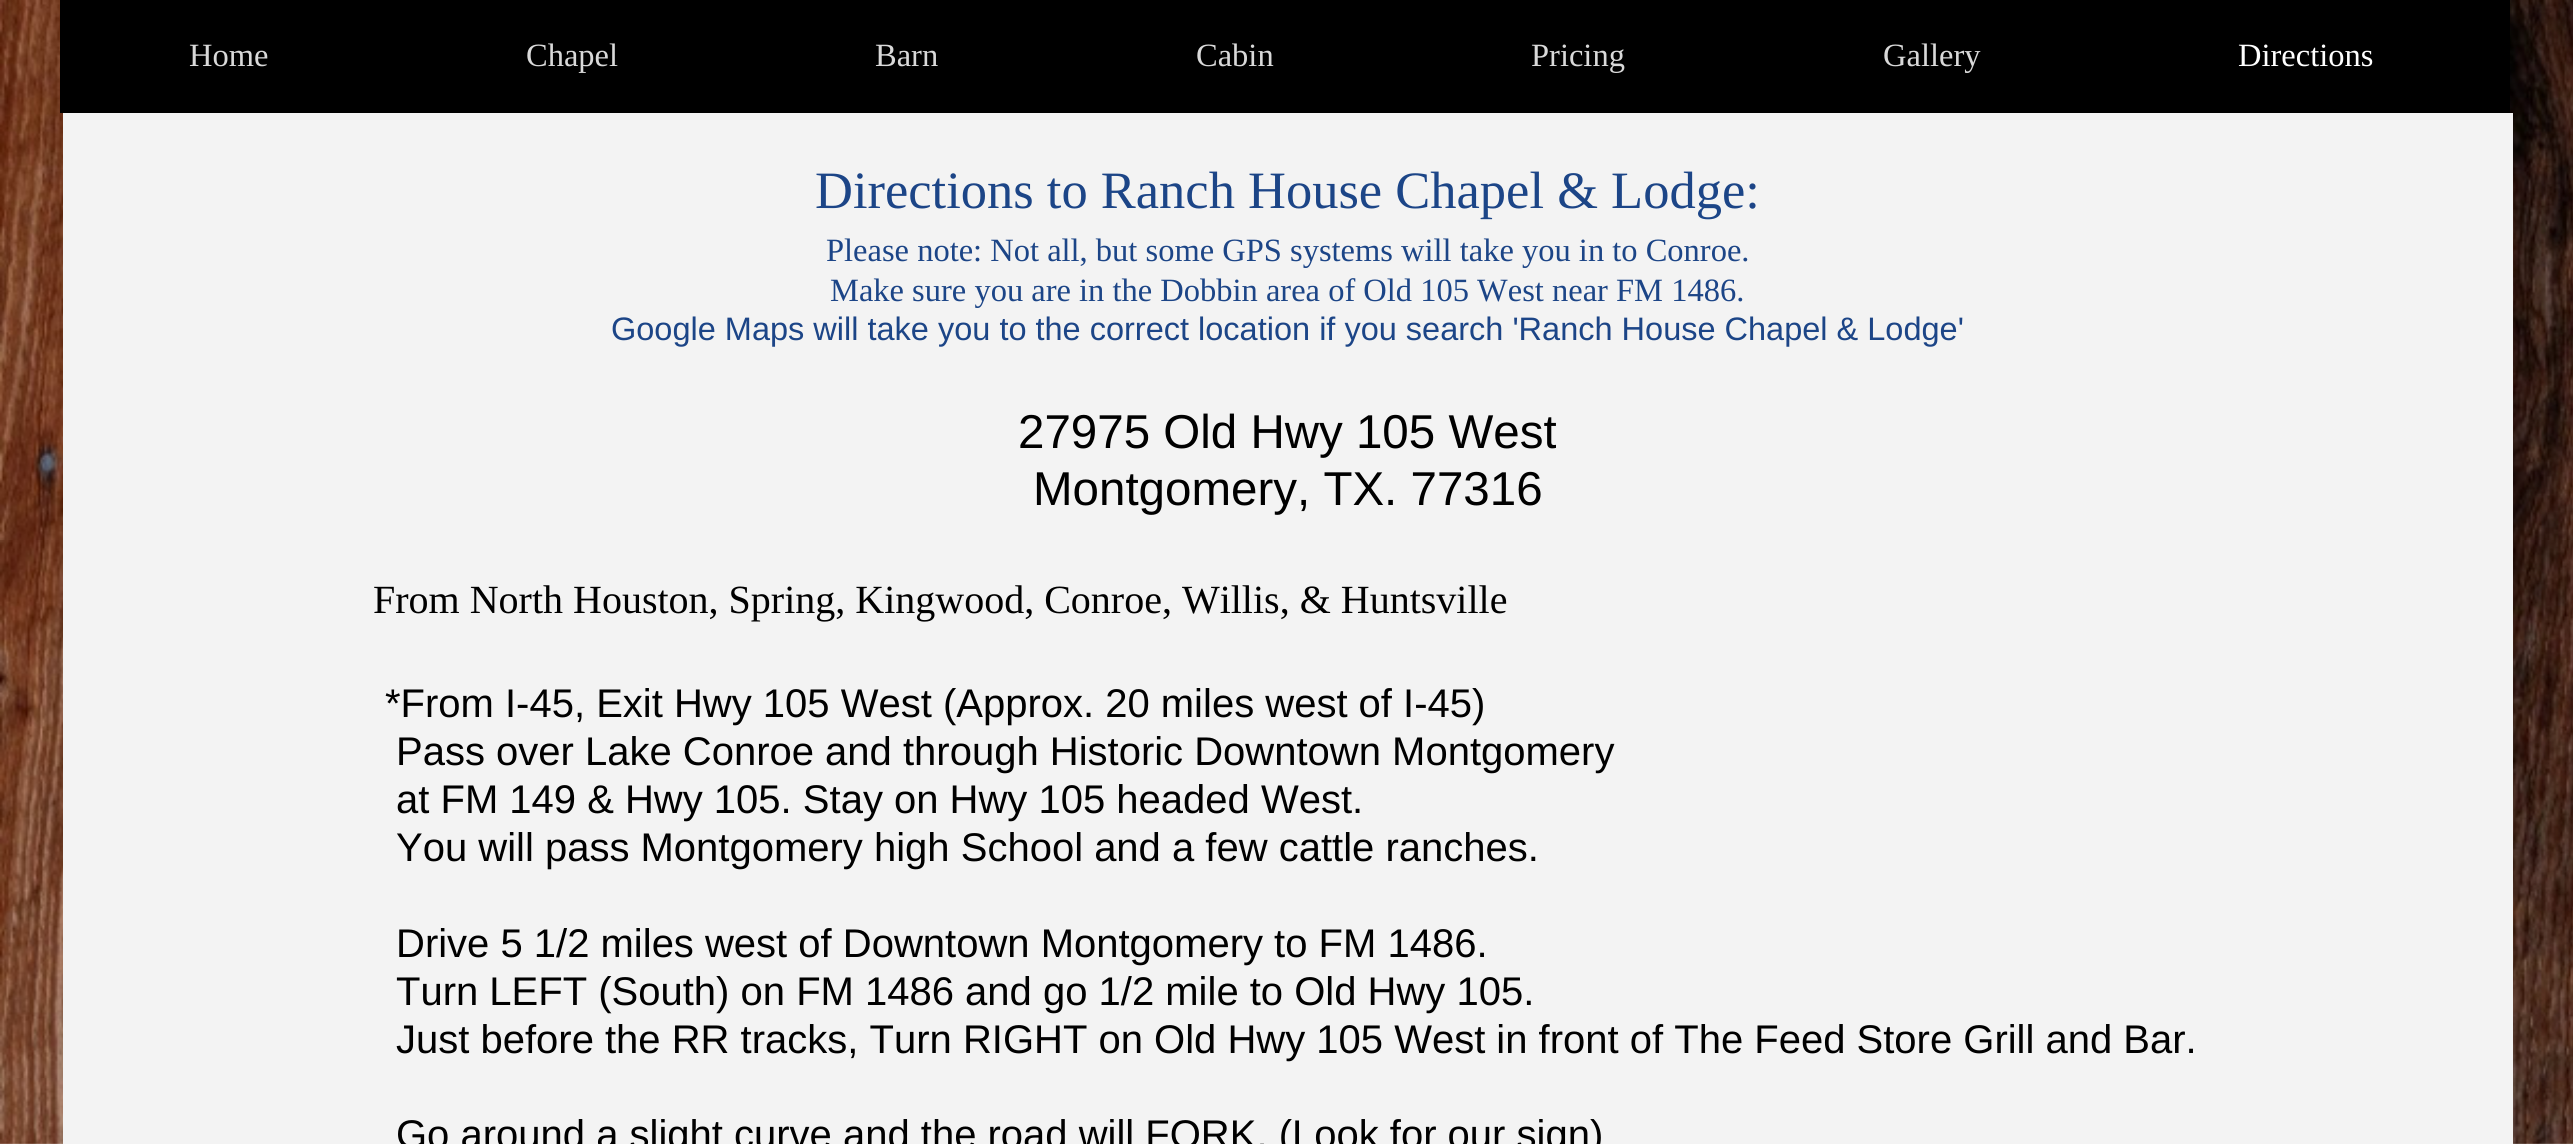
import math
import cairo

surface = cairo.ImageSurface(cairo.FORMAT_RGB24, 2573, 1144)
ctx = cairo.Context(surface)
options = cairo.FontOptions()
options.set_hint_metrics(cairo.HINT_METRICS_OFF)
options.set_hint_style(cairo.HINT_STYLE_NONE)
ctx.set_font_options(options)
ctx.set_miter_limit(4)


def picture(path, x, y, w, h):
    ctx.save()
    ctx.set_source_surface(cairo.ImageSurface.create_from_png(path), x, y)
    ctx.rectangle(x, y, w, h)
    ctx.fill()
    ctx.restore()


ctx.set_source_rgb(1, 1, 1)
ctx.paint()
picture("img1.png", 0, 0, 2573, 1144)
ctx.set_source_rgb(0, 0, 0)
ctx.rectangle(60, 0, 2450, 113)
ctx.fill()
ctx.select_font_face("Liberation Serif")
ctx.set_font_size(32.5)
ctx.set_source_rgb(0.851, 0.851, 0.851)
ctx.move_to(189, 66)
ctx.show_text("Home")
ctx.move_to(526, 66)
ctx.show_text("Chapel")
ctx.move_to(875, 66)
ctx.show_text("Barn")
ctx.move_to(1196, 66)
ctx.show_text("Cabin")
ctx.move_to(1531, 66)
ctx.show_text("Pricing")
ctx.move_to(1883, 66)
ctx.show_text("Gallery")
ctx.set_source_rgb(1, 1, 1)
ctx.move_to(2238, 66)
ctx.show_text("Directions")
ctx.set_source_rgb(0.953, 0.953, 0.953)
ctx.rectangle(63, 113, 2450, 1031)
ctx.fill()
ctx.set_font_size(52.5)
ctx.set_source_rgb(0.11, 0.271, 0.529)
ctx.move_to(815, 208)
ctx.show_text("Directions to Ranch House Chapel & Lodge:")
ctx.set_font_size(32.5)
ctx.move_to(826, 261)
ctx.show_text("Please note: Not all, but some GPS systems will take you in to Conroe.")
ctx.move_to(830, 301)
ctx.show_text("Make sure you are in the Dobbin area of Old 105 West near FM 1486.")
ctx.select_font_face("Liberation Sans")
ctx.move_to(611, 340)
ctx.show_text("Google Maps will take you to the correct location if you search 'Ranch House Chapel & Lodge'")
ctx.set_font_size(47.5)
ctx.set_source_rgb(0, 0, 0)
ctx.move_to(1018, 448)
ctx.show_text("27975 Old Hwy 105 West")
ctx.move_to(1033, 505)
ctx.show_text("Montgomery, TX. 77316")
ctx.select_font_face("Liberation Serif")
ctx.set_font_size(40)
ctx.move_to(373, 613)
ctx.show_text("From North Houston, Spring, Kingwood, Conroe, Willis, & Huntsville")
ctx.select_font_face("Liberation Sans")
ctx.move_to(385, 717)
ctx.show_text("*From I-45, Exit Hwy 105 West (Approx. 20 miles west of I-45)")
ctx.move_to(396, 765)
ctx.show_text("Pass over Lake Conroe and through Historic Downtown Montgomery")
ctx.move_to(396, 813)
ctx.show_text("at FM 149 & Hwy 105. Stay on Hwy 105 headed West.")
ctx.move_to(396, 861)
ctx.show_text("You will pass Montgomery high School and a few cattle ranches.")
ctx.move_to(396, 957)
ctx.show_text("Drive 5 1/2 miles west of Downtown Montgomery to FM 1486.")
ctx.move_to(396, 1005)
ctx.show_text("Turn LEFT (South) on FM 1486 and go 1/2 mile to Old Hwy 105.")
ctx.move_to(396, 1053)
ctx.show_text("Just before the RR tracks, Turn RIGHT on Old Hwy 105 West in front of The Feed Store Grill and Bar.")
ctx.move_to(396, 1148)
ctx.show_text("Go around a slight curve and the road will FORK. (Look for our sign)")
surface.write_to_png("page.png")
